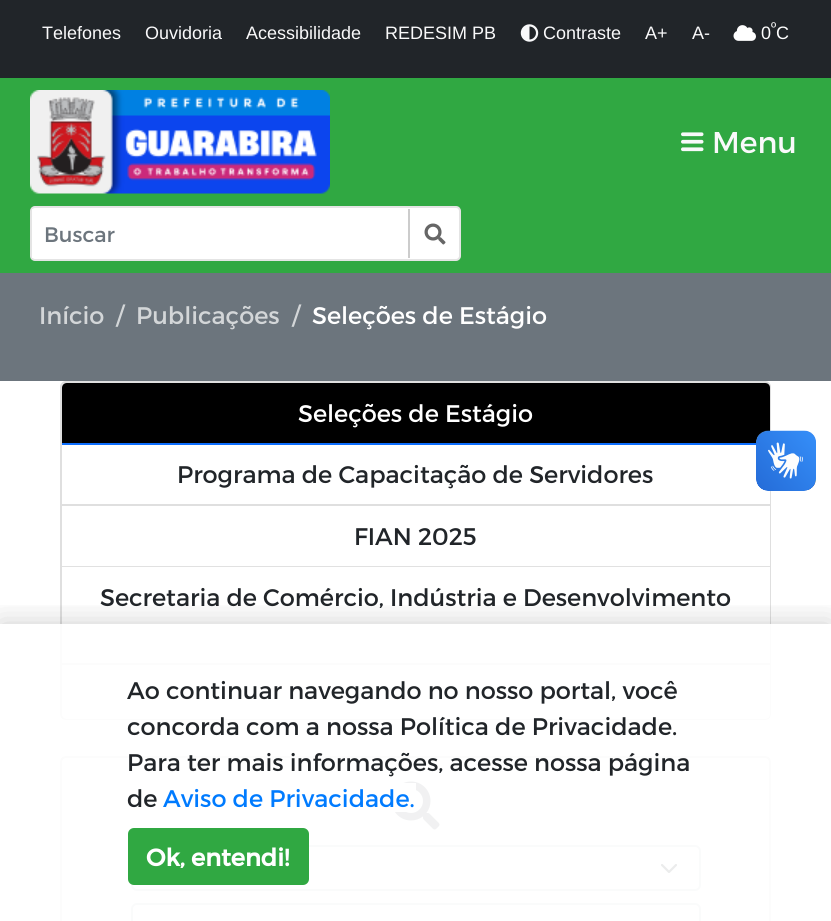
import math
import cairo

surface = cairo.ImageSurface(cairo.FORMAT_RGB24, 831, 921)
ctx = cairo.Context(surface)
options = cairo.FontOptions()
options.set_hint_metrics(cairo.HINT_METRICS_OFF)
options.set_hint_style(cairo.HINT_STYLE_NONE)
ctx.set_font_options(options)
ctx.set_miter_limit(4)


def round_rect(x, y, w, h, r):
    ctx.new_sub_path()
    for i, (u, v) in enumerate([(x + w - r, y + h - r), (x + r, y + h - r), (x + r, y + r), (x + w - r, y + r)]):
        ctx.arc(u, v, r, i * math.pi / 2, (i + 1) * math.pi / 2)
    ctx.close_path()


def shadow(x, y, w, h, r, blur, alpha):
    ctx.push_group_with_content(cairo.CONTENT_ALPHA)
    ctx.set_operator(cairo.OPERATOR_SOURCE)
    for i in range(15, -16, -2):
        e = blur * i / 6
        if min(w, h) + 2 * e > 0:
            ctx.set_source_rgba(0, 0, 0, alpha * math.erfc((i - 1) / 8.5) / 2)
            round_rect(x - e, y - e, w + 2 * e, h + 2 * e, max(0, min(r + e + blur * .6, min(w, h) / 2 + e)))
            ctx.fill()
    ctx.mask(ctx.pop_group())


def picture(path, x, y, w, h):
    ctx.save()
    ctx.set_source_surface(cairo.ImageSurface.create_from_png(path), x, y)
    ctx.rectangle(x, y, w, h)
    ctx.fill()
    ctx.restore()


ctx.set_source_rgb(1, 1, 1)
ctx.paint()
ctx.set_source_rgb(0.129, 0.145, 0.161)
ctx.rectangle(0, 0, 831, 78)
ctx.fill()
ctx.select_font_face("Liberation Sans")
ctx.set_font_size(18)
ctx.set_source_rgb(0.973, 0.976, 0.98)
ctx.move_to(42, 39)
ctx.show_text("Telefones")
ctx.move_to(145, 39)
ctx.show_text("Ouvidoria")
ctx.move_to(246, 39)
ctx.show_text("Acessibilidade")
ctx.move_to(385, 39)
ctx.show_text("REDESIM PB")
picture("img1.png", 520, 24, 19, 18)
ctx.move_to(543, 39)
ctx.show_text("Contraste")
ctx.move_to(645, 39)
ctx.show_text("A+")
ctx.move_to(692, 39)
ctx.show_text("A-")
picture("img2.png", 733, 25, 23, 16)
ctx.set_font_size(14)
ctx.set_source_rgb(1, 1, 1)
ctx.move_to(771, 32)
ctx.show_text("º")
ctx.set_font_size(18)
ctx.move_to(761, 39)
ctx.show_text("0 C")
ctx.set_source_rgb(0.188, 0.659, 0.259)
ctx.rectangle(0, 78, 831, 195)
ctx.fill()
picture("img3.png", 30, 90, 300, 104)
picture("img4.png", 681, 132, 23, 20)
ctx.select_font_face("Montserrat")
ctx.set_font_size(30)
ctx.set_source_rgb(0.973, 0.976, 0.98)
ctx.move_to(712, 153)
ctx.show_text("Menu")
ctx.set_source_rgb(1, 1, 1)
round_rect(31, 207, 429, 53, 4)
ctx.fill_preserve()
ctx.set_source_rgb(0.894, 0.894, 0.894)
ctx.stroke()
ctx.set_source_rgb(1, 1, 1)
ctx.rectangle(32, 209, 1, 49)
ctx.fill()
ctx.set_font_size(21)
ctx.set_source_rgb(0.424, 0.459, 0.49)
ctx.move_to(44, 242)
ctx.show_text("Buscar")
ctx.set_source_rgb(0.8, 0.8, 0.8)
ctx.rectangle(408, 209, 2, 49)
ctx.fill()
picture("img5.png", 424, 223, 22, 22)
ctx.set_source_rgb(0.424, 0.459, 0.49)
ctx.rectangle(0, 273, 831, 108)
ctx.fill()
ctx.set_font_size(24)
ctx.set_source_rgb(0.827, 0.839, 0.847)
ctx.move_to(39, 324)
ctx.show_text("Início")
ctx.move_to(116, 324)
ctx.show_text("/")
ctx.move_to(136, 324)
ctx.show_text("Publicações")
ctx.move_to(292, 324)
ctx.show_text("/")
ctx.set_source_rgb(1, 1, 1)
ctx.move_to(312, 324)
ctx.show_text("Seleções de Estágio")
round_rect(61, 382, 709, 337, 5)
ctx.set_source_rgb(0.875, 0.875, 0.875)
ctx.stroke()
ctx.set_source_rgb(0, 0, 0)
ctx.new_path()
ctx.move_to(67, 383)
ctx.line_to(765, 383)
ctx.curve_to(768, 383, 770, 385, 770, 388)
ctx.line_to(770, 443)
ctx.line_to(62, 443)
ctx.line_to(62, 388)
ctx.curve_to(62, 385, 64, 383, 67, 383)
ctx.close_path()
ctx.fill()
ctx.set_source_rgb(0.051, 0.431, 0.992)
ctx.rectangle(62, 443, 694, 2)
ctx.fill()
ctx.set_source_rgb(1, 1, 1)
ctx.move_to(298, 422)
ctx.show_text("Seleções de Estágio")
ctx.rectangle(769, 445, 1, 59)
ctx.fill()
ctx.set_source_rgb(0.875, 0.875, 0.875)
ctx.rectangle(62, 504, 708, 2)
ctx.fill()
ctx.set_source_rgb(0.129, 0.145, 0.161)
ctx.move_to(177, 483)
ctx.show_text("Programa de Capacitação de Servidores")
ctx.set_source_rgb(1, 1, 1)
ctx.rectangle(769, 506, 1, 157)
ctx.fill()
ctx.set_source_rgba(0, 0, 0, 0.12)
ctx.rectangle(62, 566, 708, 1)
ctx.fill()
ctx.set_source_rgb(0.129, 0.145, 0.161)
ctx.move_to(354, 545)
ctx.show_text("FIAN 2025")
ctx.set_source_rgb(0.875, 0.875, 0.875)
ctx.rectangle(62, 663, 708, 2)
ctx.fill()
ctx.set_source_rgb(0.129, 0.145, 0.161)
ctx.move_to(100, 606)
ctx.show_text("Secretaria de Comércio, Indústria e Desenvolvimento")
ctx.set_source_rgb(1, 1, 1)
ctx.new_path()
ctx.move_to(62, 665)
ctx.line_to(770, 665)
ctx.line_to(770, 714)
ctx.curve_to(770, 717, 768, 719, 765, 719)
ctx.line_to(67, 719)
ctx.curve_to(64, 719, 62, 717, 62, 714)
ctx.close_path()
ctx.fill()
round_rect(61, 757, 709, 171, 5)
ctx.set_source_rgb(0.875, 0.875, 0.875)
ctx.stroke()
picture("img6.png", 395, 781, 45, 49)
ctx.new_path()
ctx.move_to(662, 865)
ctx.line_to(669, 872)
ctx.line_to(676, 865)
ctx.set_source_rgb(0.204, 0.227, 0.251)
ctx.set_line_width(2.2)
ctx.set_line_cap(cairo.LINE_CAP_ROUND)
ctx.set_line_join(cairo.LINE_JOIN_ROUND)
ctx.stroke()
round_rect(132, 846, 568, 44, 5)
ctx.set_source_rgb(0.808, 0.831, 0.855)
ctx.set_line_width(2)
ctx.set_line_cap(cairo.LINE_CAP_BUTT)
ctx.set_line_join(cairo.LINE_JOIN_MITER)
ctx.stroke()
round_rect(132, 904, 568, 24, 5)
ctx.stroke()
picture("img7.png", 756, 430, 60, 61)
picture("img8.png", 756, 431, 60, 60)
ctx.save()
ctx.rectangle(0, 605, 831, 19)
ctx.clip()
ctx.set_source_rgb(0, 0, 0)
shadow(0, 624, 831, 297, 0, 15, 0.2)
ctx.restore()
ctx.set_source_rgba(1, 1, 1, 0.9)
ctx.rectangle(60, 624, 711, 297)
ctx.fill()
ctx.set_source_rgb(0.129, 0.145, 0.161)
ctx.move_to(127, 699)
ctx.show_text("Ao continuar navegando no nosso portal, você")
ctx.move_to(127, 735)
ctx.show_text("concorda com a nossa Política de Privacidade.")
ctx.move_to(127, 771)
ctx.show_text("Para ter mais informações, acesse nossa página")
ctx.move_to(127, 807)
ctx.show_text("de")
ctx.set_source_rgb(1, 1, 1)
ctx.rectangle(395, 783, 21, 29)
ctx.fill()
ctx.set_source_rgb(0, 0.482, 1)
ctx.move_to(163, 807)
ctx.show_text("Aviso de Privacidade.")
ctx.set_source_rgb(0.188, 0.659, 0.259)
round_rect(129, 829, 179, 55, 5)
ctx.fill_preserve()
ctx.stroke()
ctx.select_font_face("Montserrat", cairo.FONT_SLANT_NORMAL, cairo.FONT_WEIGHT_BOLD)
ctx.set_source_rgb(1, 1, 1)
ctx.move_to(146, 866)
ctx.show_text("Ok, entendi!")
surface.write_to_png("page.png")
